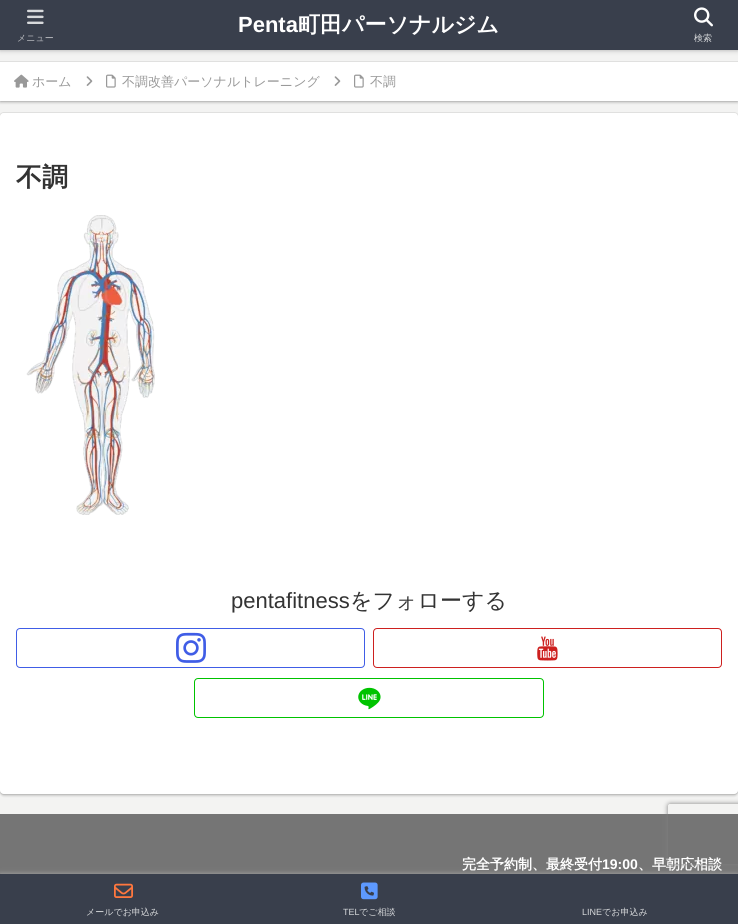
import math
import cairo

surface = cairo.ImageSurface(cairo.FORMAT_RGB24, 738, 924)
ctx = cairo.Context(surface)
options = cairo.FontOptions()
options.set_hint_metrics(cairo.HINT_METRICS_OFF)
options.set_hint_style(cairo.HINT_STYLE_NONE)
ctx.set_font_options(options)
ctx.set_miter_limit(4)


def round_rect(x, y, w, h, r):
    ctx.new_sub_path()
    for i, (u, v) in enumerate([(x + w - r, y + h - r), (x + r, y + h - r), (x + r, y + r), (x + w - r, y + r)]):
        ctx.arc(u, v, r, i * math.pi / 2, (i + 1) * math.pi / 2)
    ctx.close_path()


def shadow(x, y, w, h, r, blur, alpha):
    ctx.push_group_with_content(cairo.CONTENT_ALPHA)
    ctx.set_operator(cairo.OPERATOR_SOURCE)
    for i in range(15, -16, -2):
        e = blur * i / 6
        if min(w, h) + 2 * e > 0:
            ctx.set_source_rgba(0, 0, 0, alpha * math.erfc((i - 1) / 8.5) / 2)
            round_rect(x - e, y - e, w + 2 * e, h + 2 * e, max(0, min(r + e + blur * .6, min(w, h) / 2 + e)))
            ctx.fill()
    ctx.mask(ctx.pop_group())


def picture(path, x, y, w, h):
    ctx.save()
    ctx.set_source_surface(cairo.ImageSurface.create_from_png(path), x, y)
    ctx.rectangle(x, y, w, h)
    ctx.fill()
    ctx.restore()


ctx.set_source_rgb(0.953, 0.953, 0.949)
ctx.paint()
ctx.set_source_rgb(0.663, 0.663, 0.663)
shadow(0, 0, 738, 50, 0, 2.5, 1)
ctx.set_source_rgb(0.224, 0.247, 0.298)
ctx.rectangle(0, 0, 738, 50)
ctx.fill()
ctx.select_font_face("Liberation Sans", cairo.FONT_SLANT_NORMAL, cairo.FONT_WEIGHT_BOLD)
ctx.set_font_size(22)
ctx.set_source_rgb(1, 1, 1)
ctx.move_to(238, 32)
ctx.show_text("Penta")
ctx.select_font_face("WenQuanYi Zen Hei", cairo.FONT_SLANT_NORMAL, cairo.FONT_WEIGHT_BOLD)
ctx.move_to(298, 32)
ctx.show_text("町田パーソナルジム")
picture("img1.png", 27, 9, 17, 15)
ctx.select_font_face("WenQuanYi Zen Hei Medium")
ctx.set_font_size(9)
ctx.set_source_rgb(0.722, 0.729, 0.749)
ctx.move_to(17, 41)
ctx.show_text("メニュー")
picture("img2.png", 694, 7, 19, 20)
ctx.set_source_rgb(0.843, 0.851, 0.859)
ctx.move_to(694, 41)
ctx.show_text("検索")
ctx.rectangle(-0.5, 61.5, 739, 40)
ctx.set_source_rgb(0.878, 0.878, 0.875)
ctx.set_line_width(1)
ctx.stroke()
ctx.set_source_rgb(0, 0, 0)
shadow(0, 64, 738, 39, 0, 1, 0.16)
ctx.set_source_rgb(1, 1, 1)
ctx.rectangle(0, 62, 738, 39)
ctx.fill()
picture("img3.png", 14, 74, 15, 14)
ctx.set_font_size(13)
ctx.set_source_rgb(0.6, 0.6, 0.6)
ctx.move_to(32, 86)
ctx.show_text("ホーム")
picture("img4.png", 86, 76, 7, 10)
picture("img5.png", 106, 74, 10, 14)
ctx.move_to(122, 86)
ctx.show_text("不調改善パーソナルトレーニング")
picture("img4.png", 334, 76, 7, 10)
picture("img5.png", 354, 74, 10, 14)
ctx.move_to(370, 86)
ctx.show_text("不調")
round_rect(-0.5, 112.5, 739, 682, 4.5)
ctx.set_source_rgb(0.878, 0.878, 0.875)
ctx.stroke()
ctx.set_source_rgb(0, 0, 0)
shadow(0, 115, 738, 681, 4, 1, 0.16)
ctx.set_source_rgb(1, 1, 1)
round_rect(0, 113, 738, 681, 4)
ctx.fill()
ctx.select_font_face("WenQuanYi Zen Hei", cairo.FONT_SLANT_NORMAL, cairo.FONT_WEIGHT_BOLD)
ctx.set_font_size(26)
ctx.set_source_rgb(0.2, 0.2, 0.2)
ctx.move_to(16, 186)
ctx.show_text("不調")
picture("img6.png", 26, 215, 129, 300)
ctx.select_font_face("Liberation Sans")
ctx.set_font_size(22)
ctx.move_to(231, 608)
ctx.show_text("pentafitness")
ctx.select_font_face("WenQuanYi Zen Hei Medium")
ctx.move_to(350, 608)
ctx.show_text("をフォローする")
round_rect(16.5, 628.5, 348, 39, 3.5)
ctx.set_source_rgb(0.251, 0.365, 0.902)
ctx.stroke()
picture("img7.png", 176, 632, 30, 31)
round_rect(373.5, 628.5, 348, 39, 3.5)
ctx.set_source_rgb(0.804, 0.125, 0.122)
ctx.stroke()
picture("img8.png", 537, 636, 21, 25)
round_rect(194.5, 678.5, 349, 39, 3.5)
ctx.set_source_rgb(0, 0.765, 0)
ctx.stroke()
picture("img9.png", 358, 687, 23, 23)
ctx.set_source_rgb(0.459, 0.459, 0.459)
ctx.rectangle(0, 814, 738, 60)
ctx.fill()
ctx.select_font_face("WenQuanYi Zen Hei", cairo.FONT_SLANT_NORMAL, cairo.FONT_WEIGHT_BOLD)
ctx.set_font_size(14)
ctx.set_source_rgb(1, 1, 1)
ctx.move_to(462, 869)
ctx.show_text("完全予約制、最終受付")
ctx.select_font_face("Liberation Sans", cairo.FONT_SLANT_NORMAL, cairo.FONT_WEIGHT_BOLD)
ctx.move_to(602, 869)
ctx.show_text("19:00")
ctx.select_font_face("WenQuanYi Zen Hei", cairo.FONT_SLANT_NORMAL, cairo.FONT_WEIGHT_BOLD)
ctx.move_to(638, 869)
ctx.show_text("、早朝応相談")
ctx.set_source_rgb(0.663, 0.663, 0.663)
shadow(0, 874, 738, 50, 0, 2.5, 1)
ctx.set_source_rgb(0.224, 0.247, 0.298)
ctx.rectangle(0, 874, 738, 50)
ctx.fill()
picture("img10.png", 114, 883, 19, 15)
ctx.select_font_face("WenQuanYi Zen Hei Medium")
ctx.set_font_size(9)
ctx.set_source_rgb(0.843, 0.851, 0.859)
ctx.move_to(86, 915)
ctx.show_text("メールでお申込み")
picture("img11.png", 361, 882, 17, 18)
ctx.select_font_face("Liberation Sans")
ctx.move_to(343, 915)
ctx.show_text("TEL")
ctx.select_font_face("WenQuanYi Zen Hei Medium")
ctx.move_to(359, 915)
ctx.show_text("でご相談")
ctx.select_font_face("Liberation Sans")
ctx.move_to(582, 915)
ctx.show_text("LINE")
ctx.select_font_face("WenQuanYi Zen Hei Medium")
ctx.move_to(602, 915)
ctx.show_text("でお申込み")
ctx.save()
ctx.set_fill_rule(cairo.FILL_RULE_EVEN_ODD)
ctx.new_path()
ctx.move_to(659, 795)
ctx.line_to(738, 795)
ctx.line_to(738, 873)
ctx.line_to(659, 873)
ctx.close_path()
ctx.move_to(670, 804)
ctx.line_to(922, 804)
ctx.curve_to(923, 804, 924, 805, 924, 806)
ctx.line_to(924, 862)
ctx.curve_to(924, 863, 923, 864, 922, 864)
ctx.line_to(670, 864)
ctx.curve_to(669, 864, 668, 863, 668, 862)
ctx.line_to(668, 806)
ctx.curve_to(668, 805, 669, 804, 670, 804)
ctx.close_path()
ctx.clip()
ctx.set_source_rgb(0.502, 0.502, 0.502)
shadow(668, 804, 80, 60, 2, 2.5, 1)
ctx.restore()
surface.write_to_png("page.png")
